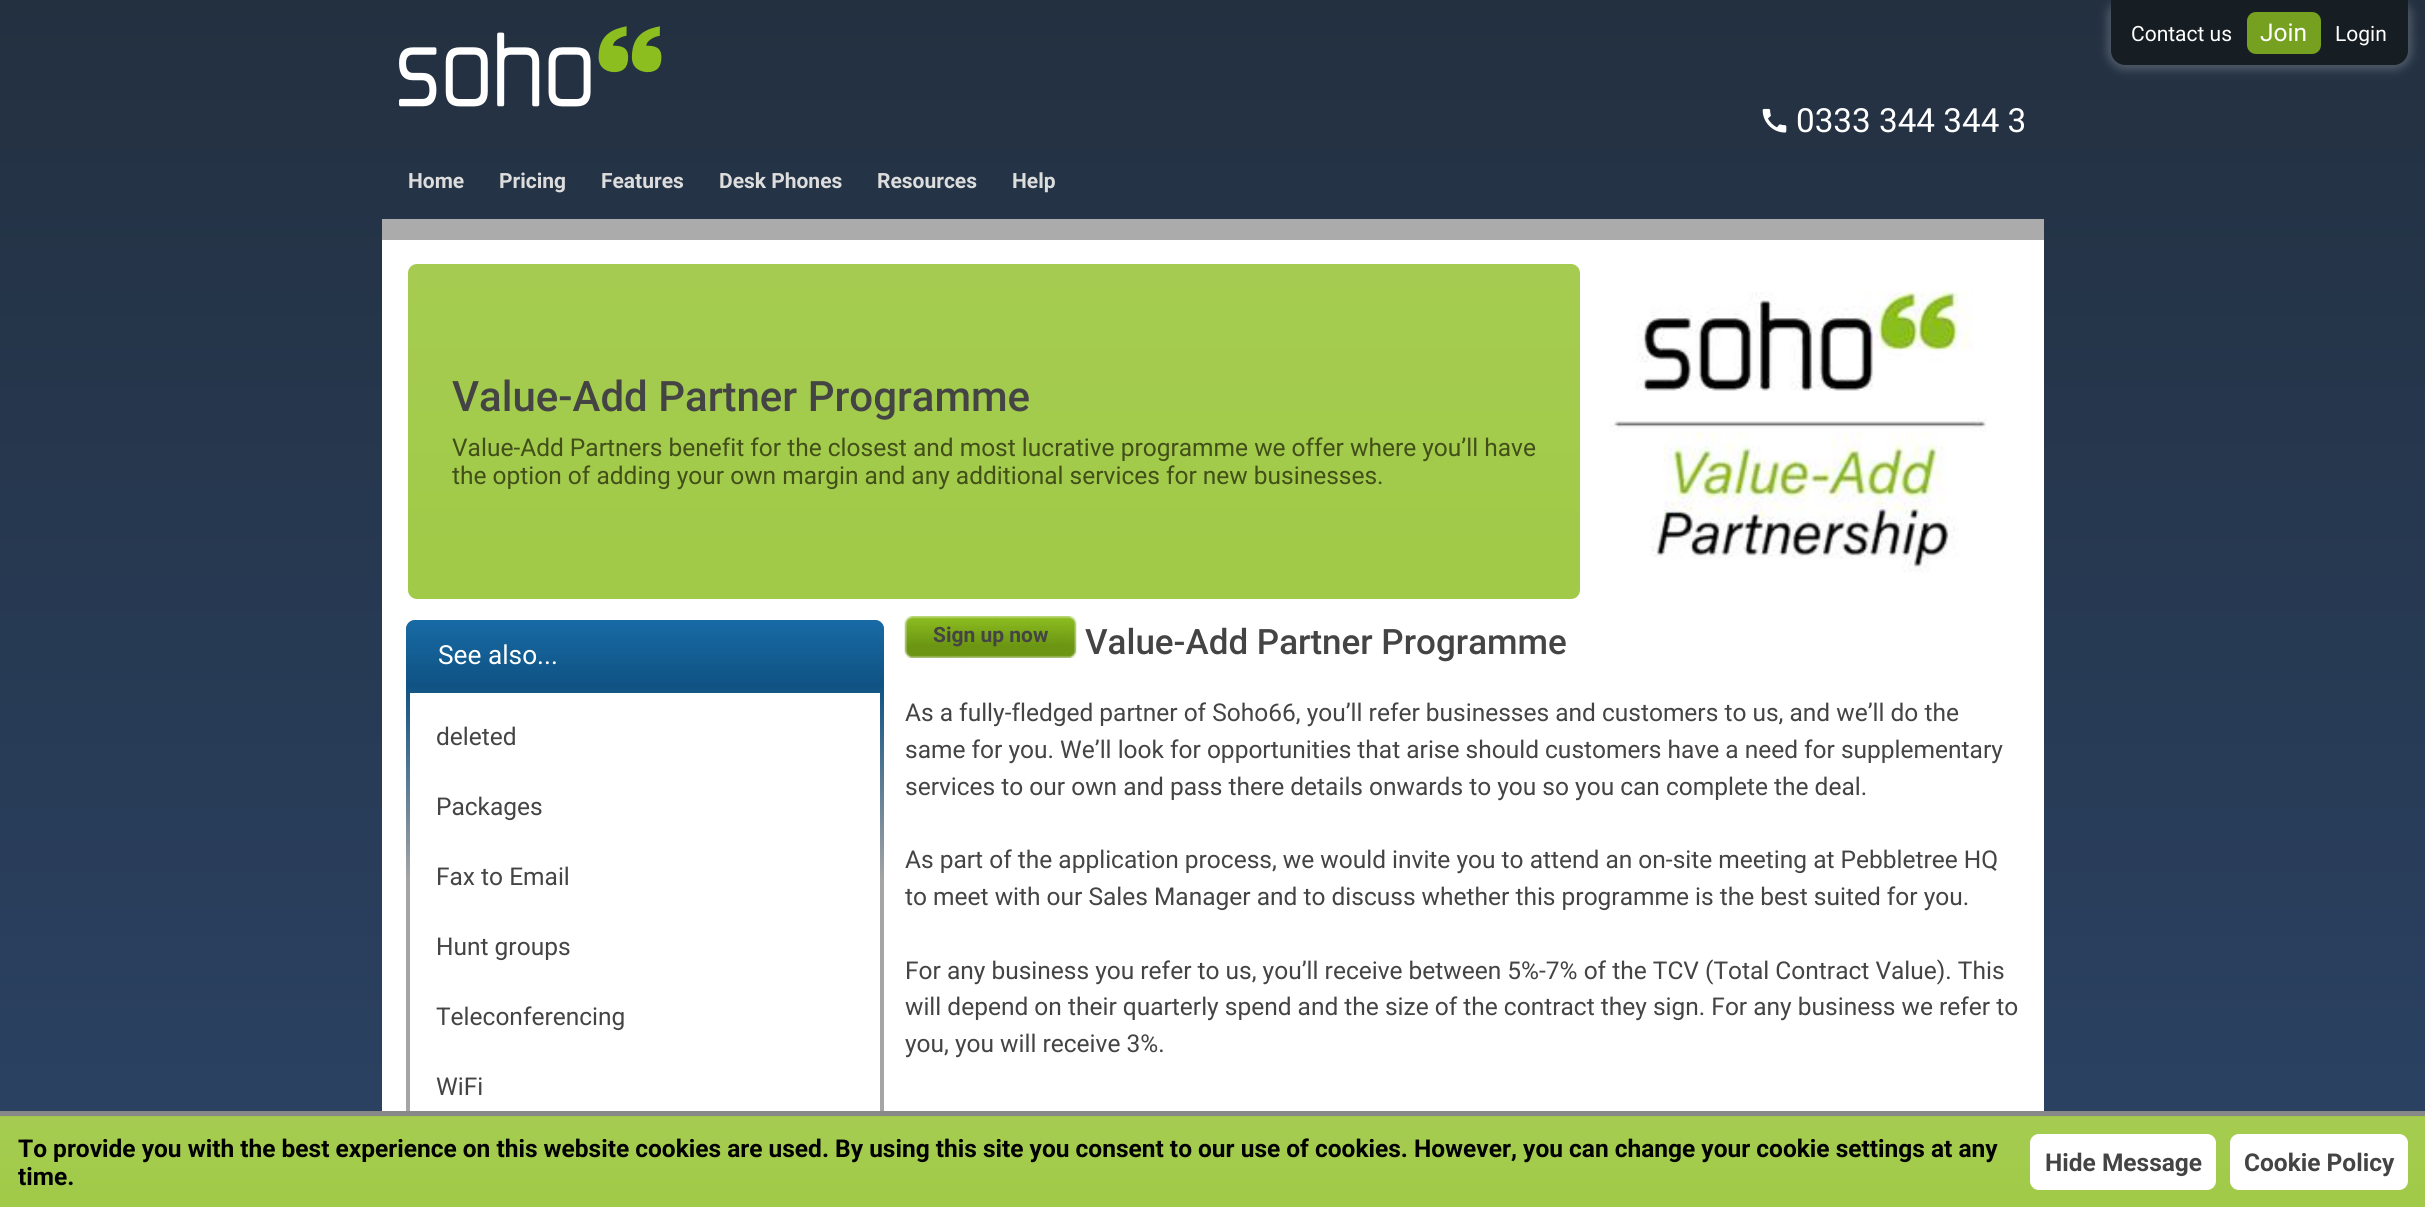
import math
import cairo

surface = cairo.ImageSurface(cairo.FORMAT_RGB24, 2425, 1207)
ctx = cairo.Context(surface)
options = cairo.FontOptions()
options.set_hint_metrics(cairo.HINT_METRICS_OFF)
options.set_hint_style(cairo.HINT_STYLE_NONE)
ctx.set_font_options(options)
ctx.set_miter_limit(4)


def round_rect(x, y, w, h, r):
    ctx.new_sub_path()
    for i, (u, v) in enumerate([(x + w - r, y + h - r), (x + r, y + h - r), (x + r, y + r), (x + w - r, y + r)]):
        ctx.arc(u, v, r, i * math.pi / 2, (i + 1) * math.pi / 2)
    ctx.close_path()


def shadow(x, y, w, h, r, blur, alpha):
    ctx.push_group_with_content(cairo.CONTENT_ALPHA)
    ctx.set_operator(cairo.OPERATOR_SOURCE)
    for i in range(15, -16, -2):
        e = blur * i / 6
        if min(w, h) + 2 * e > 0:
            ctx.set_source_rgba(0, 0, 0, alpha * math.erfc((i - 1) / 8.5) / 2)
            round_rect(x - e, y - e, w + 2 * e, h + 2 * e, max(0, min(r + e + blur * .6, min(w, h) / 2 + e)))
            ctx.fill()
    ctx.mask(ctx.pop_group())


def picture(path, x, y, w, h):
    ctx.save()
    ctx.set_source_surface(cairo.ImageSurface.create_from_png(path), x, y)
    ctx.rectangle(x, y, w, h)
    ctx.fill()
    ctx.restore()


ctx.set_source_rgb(1, 1, 1)
ctx.paint()
gradient = cairo.LinearGradient(1213, 0, 1213, 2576)
gradient.add_color_stop_rgba(0, 0.137, 0.188, 0.251, 1)
gradient.add_color_stop_rgba(1, 0.204, 0.345, 0.557, 1)
ctx.set_source(gradient)
ctx.rectangle(0, 0, 2425, 1111)
ctx.fill()
ctx.set_source_rgb(1, 1, 1)
shadow(2107, -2, 305, 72, 18, 4.5, 0.2)
ctx.set_source_rgb(0.086, 0.114, 0.137)
ctx.new_path()
ctx.move_to(2111, 0)
ctx.line_to(2408, 0)
ctx.line_to(2408, 51)
ctx.curve_to(2408, 58.5, 2401.5, 65, 2394, 65)
ctx.line_to(2125, 65)
ctx.curve_to(2117.5, 65, 2111, 58.5, 2111, 51)
ctx.close_path()
ctx.fill()
ctx.select_font_face("Roboto")
ctx.set_font_size(21)
ctx.set_source_rgb(1, 1, 1)
ctx.move_to(2131, 41)
ctx.show_text("Contact us")
ctx.set_source_rgb(0.463, 0.627, 0.125)
round_rect(2247, 12, 74, 42, 9)
ctx.fill()
ctx.set_font_size(24.5)
ctx.set_source_rgb(1, 1, 1)
ctx.move_to(2260, 41)
ctx.show_text("Join")
ctx.set_font_size(21)
ctx.move_to(2335, 41)
ctx.show_text("Login")
ctx.select_font_face("Roboto", cairo.FONT_SLANT_NORMAL, cairo.FONT_WEIGHT_BOLD)
ctx.set_source_rgb(0.867, 0.867, 0.867)
ctx.move_to(408, 188)
ctx.show_text("Home")
ctx.move_to(499, 188)
ctx.show_text("Pricing")
ctx.move_to(601, 188)
ctx.show_text("Features")
ctx.move_to(719, 188)
ctx.show_text("Desk Phones")
ctx.move_to(877, 188)
ctx.show_text("Resources")
ctx.move_to(1012, 188)
ctx.show_text("Help")
ctx.set_source_rgb(1, 1, 1)
ctx.rectangle(382, 240, 1662, 871)
ctx.fill()
ctx.set_source_rgb(0.671, 0.671, 0.671)
ctx.rectangle(382, 219, 1662, 21)
ctx.fill()
gradient = cairo.LinearGradient(994, 264, 994, 599)
gradient.add_color_stop_rgba(0, 0.647, 0.8, 0.314, 1)
gradient.add_color_stop_rgba(1, 0.631, 0.792, 0.282, 1)
ctx.set_source(gradient)
round_rect(408, 264, 1172, 335, 9)
ctx.fill()
ctx.select_font_face("Roboto Medium")
ctx.set_font_size(42)
ctx.set_source_rgb(0.267, 0.267, 0.267)
ctx.move_to(452, 411)
ctx.show_text("Value-Add Partner Programme")
ctx.select_font_face("Roboto")
ctx.set_font_size(24.5)
ctx.set_source_rgb(0.259, 0.31, 0.098)
ctx.move_to(452, 456)
ctx.show_text("Value-Add Partners benefit for the closest and most lucrative programme we offer where you’ll have")
ctx.move_to(452, 484)
ctx.show_text("the option of adding your own margin and any additional services for new businesses.")
picture("img1.png", 1609, 282, 378, 299)
picture("img2.png", 399, 26, 263, 81)
picture("img3.png", 1762, 108, 25, 25)
ctx.set_font_size(33.25)
ctx.set_source_rgb(1, 1, 1)
ctx.move_to(1796, 132)
ctx.show_text("0333 344 344 3")
ctx.set_source_rgb(0.647, 0.647, 0.647)
round_rect(406, 620, 478, 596, 9)
ctx.fill()
gradient = cairo.LinearGradient(645, 620, 645, 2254)
gradient.add_color_stop_rgba(0, 0.094, 0.416, 0.647, 1)
gradient.add_color_stop_rgba(0.04, 0.059, 0.325, 0.514, 1)
gradient.add_color_stop_rgba(0.16, 0.059, 0.325, 0.514, 0)
ctx.set_source(gradient)
round_rect(406, 620, 478, 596, 9)
ctx.fill()
ctx.set_font_size(26.25)
ctx.set_source_rgb(1, 1, 1)
ctx.move_to(438, 664)
ctx.show_text("See also...")
ctx.rectangle(410, 693, 470, 418)
ctx.fill()
ctx.set_font_size(24.5)
ctx.set_source_rgb(0.267, 0.267, 0.267)
ctx.move_to(436, 745)
ctx.show_text("deleted")
ctx.move_to(436, 815)
ctx.show_text("Packages")
ctx.move_to(436, 885)
ctx.show_text("Fax to Email")
ctx.move_to(436, 955)
ctx.show_text("Hunt groups")
ctx.move_to(436, 1025)
ctx.show_text("Teleconferencing")
ctx.move_to(436, 1095)
ctx.show_text("WiFi")
picture("img4.png", 904, 616, 173, 42)
ctx.select_font_face("Roboto", cairo.FONT_SLANT_NORMAL, cairo.FONT_WEIGHT_BOLD)
ctx.set_font_size(21)
ctx.move_to(933, 642)
ctx.show_text("Sign up now")
ctx.select_font_face("Roboto Medium")
ctx.set_font_size(35)
ctx.move_to(1085, 654)
ctx.show_text("Value-Add Partner Programme")
ctx.select_font_face("Roboto")
ctx.set_font_size(24.5)
ctx.move_to(905, 721)
ctx.show_text("As a fully-fledged partner of Soho66, you’ll refer businesses and customers to us, and we’ll do the")
ctx.move_to(905, 758)
ctx.show_text("same for you. We’ll look for opportunities that arise should customers have a need for supplementary")
ctx.move_to(905, 795)
ctx.show_text("services to our own and pass there details onwards to you so you can complete the deal.")
ctx.move_to(905, 868)
ctx.show_text("As part of the application process, we would invite you to attend an on-site meeting at Pebbletree HQ")
ctx.move_to(905, 905)
ctx.show_text("to meet with our Sales Manager and to discuss whether this programme is the best suited for you.")
ctx.move_to(905, 979)
ctx.show_text("For any business you refer to us, you’ll receive between 5%-7% of the TCV (Total Contract Value). This")
ctx.move_to(905, 1015)
ctx.show_text("will depend on their quarterly spend and the size of the contract they sign. For any business we refer to")
ctx.move_to(905, 1052)
ctx.show_text("you, you will receive 3%.")
gradient = cairo.LinearGradient(1213, 1025, 1213, 1117)
gradient.add_color_stop_rgba(0, 0.647, 0.8, 0.31, 1)
gradient.add_color_stop_rgba(1, 0.631, 0.792, 0.282, 1)
ctx.set_source(gradient)
ctx.rectangle(0, 1116, 2425, 1)
ctx.fill()
gradient = cairo.LinearGradient(1213, 1116, 1213, 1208)
gradient.add_color_stop_rgba(0, 0.647, 0.8, 0.314, 1)
gradient.add_color_stop_rgba(1, 0.631, 0.792, 0.282, 1)
ctx.set_source(gradient)
ctx.rectangle(0, 1117, 2425, 90)
ctx.fill()
ctx.set_source_rgb(0.533, 0.533, 0.533)
ctx.rectangle(0, 1111, 2425, 5)
ctx.fill()
ctx.select_font_face("Roboto", cairo.FONT_SLANT_NORMAL, cairo.FONT_WEIGHT_BOLD)
ctx.set_source_rgb(0, 0, 0)
ctx.move_to(18, 1157)
ctx.show_text("To provide you with the best experience on this website cookies are used. By using this site you consent to our use of cookies. However, you can change your cookie settings at any")
ctx.move_to(18, 1185)
ctx.show_text("time.")
ctx.set_source_rgb(1, 1, 1)
round_rect(2030, 1134, 186, 56, 9)
ctx.fill()
ctx.set_source_rgb(0.267, 0.267, 0.267)
ctx.move_to(2045, 1171)
ctx.show_text("Hide Message")
ctx.set_source_rgb(1, 1, 1)
round_rect(2230, 1134, 178, 56, 9)
ctx.fill()
ctx.set_source_rgb(0.267, 0.267, 0.267)
ctx.move_to(2244, 1171)
ctx.show_text("Cookie Policy")
surface.write_to_png("page.png")
